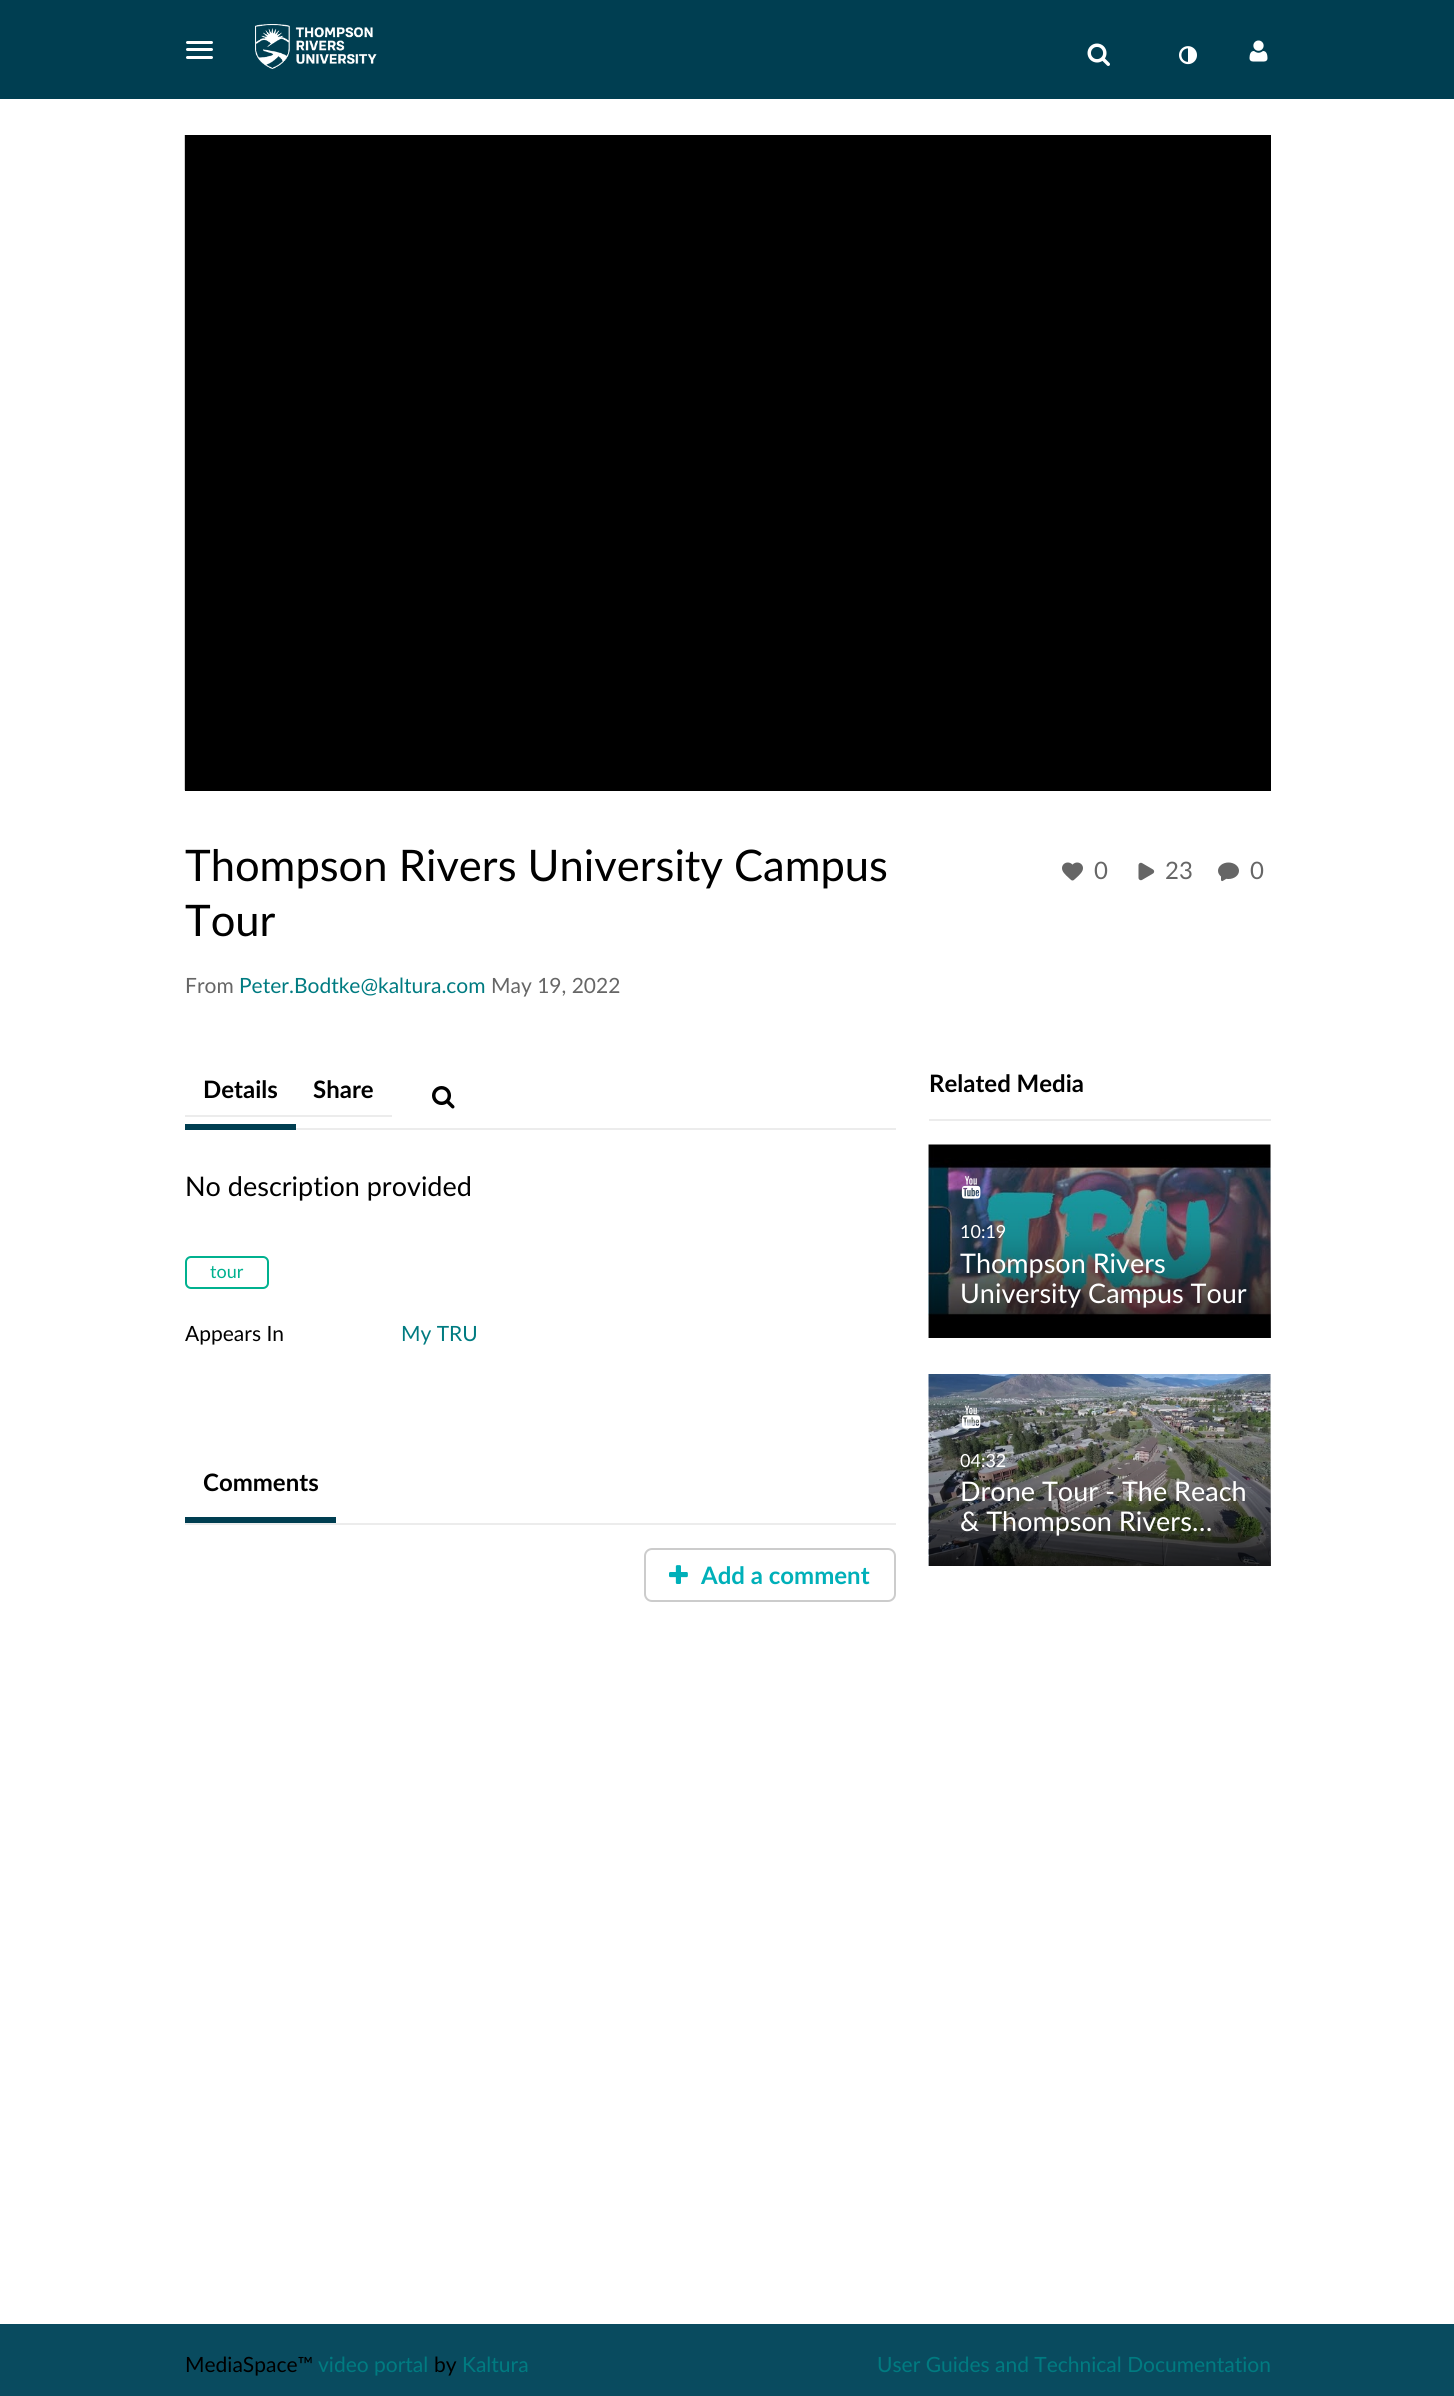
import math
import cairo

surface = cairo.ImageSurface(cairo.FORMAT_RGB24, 1454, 2396)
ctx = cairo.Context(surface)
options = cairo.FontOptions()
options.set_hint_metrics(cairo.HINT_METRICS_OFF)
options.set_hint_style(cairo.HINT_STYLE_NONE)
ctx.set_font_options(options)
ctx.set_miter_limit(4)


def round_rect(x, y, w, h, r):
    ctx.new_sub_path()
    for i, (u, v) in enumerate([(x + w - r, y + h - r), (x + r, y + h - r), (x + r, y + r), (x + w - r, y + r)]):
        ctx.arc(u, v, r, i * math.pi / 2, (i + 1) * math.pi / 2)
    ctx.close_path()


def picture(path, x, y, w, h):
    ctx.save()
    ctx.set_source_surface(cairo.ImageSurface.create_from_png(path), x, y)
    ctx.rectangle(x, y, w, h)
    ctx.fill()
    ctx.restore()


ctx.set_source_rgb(1, 1, 1)
ctx.paint()
ctx.set_source_rgb(0, 0.243, 0.318)
ctx.rectangle(0, 0, 1454, 99)
ctx.fill()
ctx.set_source_rgb(1, 1, 1)
round_rect(186, 41, 27, 3, 1.5)
ctx.fill()
round_rect(186, 48, 27, 3, 1.5)
ctx.fill()
round_rect(186, 56, 27, 3, 1.5)
ctx.fill()
picture("img1.png", 255, 24, 122, 45)
picture("img2.png", 1087, 43, 23, 23)
picture("img3.png", 1179, 46, 18, 19)
picture("img4.png", 1249, 40, 19, 22)
ctx.set_source_rgb(0, 0, 0)
ctx.rectangle(185, 135, 1086, 656)
ctx.fill()
picture("img5.png", 184, 135, 1, 656)
ctx.select_font_face("Lato")
ctx.set_font_size(43.5)
ctx.move_to(185, 881)
ctx.show_text("Thompson Rivers University Campus")
ctx.move_to(185, 936)
ctx.show_text("Tour")
ctx.set_font_size(21)
ctx.set_source_rgb(0.4, 0.4, 0.4)
ctx.move_to(185, 993)
ctx.show_text("From")
ctx.set_source_rgb(0, 0.482, 0.506)
ctx.move_to(239, 993)
ctx.show_text("Peter.Bodtke@kaltura.com")
ctx.set_source_rgb(0.4, 0.4, 0.4)
ctx.move_to(491, 993)
ctx.show_text("May 19, 2022")
picture("img6.png", 1062, 862, 21, 19)
ctx.set_font_size(24)
ctx.move_to(1094, 879)
ctx.show_text("0")
picture("img7.png", 1138, 862, 17, 19)
ctx.move_to(1165, 879)
ctx.show_text("23")
picture("img8.png", 1218, 862, 21, 20)
ctx.move_to(1250, 879)
ctx.show_text("0")
ctx.set_source_rgb(0.922, 0.922, 0.922)
ctx.rectangle(296, 1128, 600, 2)
ctx.fill()
ctx.rectangle(185, 1115, 207, 2)
ctx.fill()
ctx.set_source_rgb(0, 0.243, 0.318)
ctx.rectangle(185, 1124, 111, 6)
ctx.fill()
ctx.select_font_face("Lato", cairo.FONT_SLANT_NORMAL, cairo.FONT_WEIGHT_BOLD)
ctx.set_source_rgb(0, 0, 0)
ctx.move_to(203, 1098)
ctx.show_text("Details")
ctx.move_to(313, 1098)
ctx.show_text("Share")
picture("img9.png", 432, 1086, 23, 23)
ctx.select_font_face("Lato")
ctx.set_font_size(27)
ctx.move_to(185, 1196)
ctx.show_text("No description provided")
round_rect(186, 1257, 82, 31, 5)
ctx.set_source_rgb(0, 0.694, 0.561)
ctx.stroke()
ctx.set_font_size(18)
ctx.move_to(210, 1278)
ctx.show_text("tour")
ctx.set_font_size(21)
ctx.set_source_rgb(0, 0, 0)
ctx.move_to(185, 1341)
ctx.show_text("Appears In")
ctx.set_source_rgb(0, 0.482, 0.506)
ctx.move_to(401, 1341)
ctx.show_text("My TRU")
ctx.set_source_rgb(0.922, 0.922, 0.922)
ctx.rectangle(185, 1523, 711, 2)
ctx.fill()
ctx.set_source_rgb(0, 0.243, 0.318)
ctx.rectangle(185, 1517, 151, 6)
ctx.fill()
ctx.select_font_face("Lato", cairo.FONT_SLANT_NORMAL, cairo.FONT_WEIGHT_BOLD)
ctx.set_font_size(24)
ctx.set_source_rgb(0, 0, 0)
ctx.move_to(203, 1491)
ctx.show_text("Comments")
round_rect(645, 1549, 250, 52, 7)
ctx.set_source_rgb(0.8, 0.8, 0.8)
ctx.stroke()
picture("img10.png", 669, 1565, 19, 19)
ctx.set_source_rgb(0, 0.69, 0.725)
ctx.move_to(701, 1584)
ctx.show_text("Add a comment")
ctx.set_source_rgb(0.922, 0.922, 0.922)
ctx.rectangle(929, 1119, 342, 2)
ctx.fill()
ctx.set_source_rgb(0, 0, 0)
ctx.move_to(929, 1092)
ctx.show_text("Related Media")
picture("img11.png", 928, 1144, 343, 194)
gradient = cairo.LinearGradient(1100, 1338, 1100, 1145)
gradient.add_color_stop_rgba(0, 0, 0, 0, 0.8)
gradient.add_color_stop_rgba(0.3, 0, 0, 0, 0.4)
gradient.add_color_stop_rgba(0.53, 0, 0, 0, 0.2)
gradient.add_color_stop_rgba(0.71, 0, 0, 0, 0.15)
gradient.add_color_stop_rgba(1, 0, 0, 0, 0.05)
ctx.set_source(gradient)
ctx.rectangle(929, 1145, 342, 193)
ctx.fill()
picture("img12.png", 961, 1176, 20, 23)
ctx.select_font_face("Lato")
ctx.set_font_size(18)
ctx.set_source_rgb(1, 1, 1)
ctx.move_to(960, 1238)
ctx.show_text("10:19")
ctx.set_font_size(27)
ctx.move_to(960, 1273)
ctx.show_text("Thompson Rivers")
ctx.move_to(960, 1303)
ctx.show_text("University Campus Tour")
picture("img13.png", 928, 1374, 343, 192)
gradient = cairo.LinearGradient(1100, 1566, 1100, 1374)
gradient.add_color_stop_rgba(0, 0, 0, 0, 0.8)
gradient.add_color_stop_rgba(0.3, 0, 0, 0, 0.4)
gradient.add_color_stop_rgba(0.53, 0, 0, 0, 0.2)
gradient.add_color_stop_rgba(0.71, 0, 0, 0, 0.15)
gradient.add_color_stop_rgba(1, 0, 0, 0, 0.05)
ctx.set_source(gradient)
ctx.rectangle(929, 1374, 342, 192)
ctx.fill()
picture("img14.png", 961, 1405, 20, 24)
ctx.set_font_size(18)
ctx.set_source_rgb(1, 1, 1)
ctx.move_to(960, 1467)
ctx.show_text("04:32")
ctx.set_font_size(27)
ctx.move_to(960, 1501)
ctx.show_text("Drone Tour - The Reach")
ctx.move_to(960, 1531)
ctx.show_text("& Thompson Rivers…")
ctx.set_source_rgb(0.039, 0.294, 0.373)
ctx.rectangle(0, 2324, 1454, 72)
ctx.fill()
ctx.set_font_size(21)
ctx.set_source_rgb(0, 0, 0)
ctx.move_to(185, 2372)
ctx.show_text("MediaSpace™")
ctx.set_source_rgb(0, 0.482, 0.506)
ctx.move_to(318, 2372)
ctx.show_text("video portal")
ctx.set_source_rgb(0, 0, 0)
ctx.move_to(434, 2372)
ctx.show_text("by")
ctx.set_source_rgb(0, 0.482, 0.506)
ctx.move_to(462, 2372)
ctx.show_text("Kaltura")
ctx.move_to(877, 2372)
ctx.show_text("User Guides and Technical Documentation")
surface.write_to_png("page.png")
